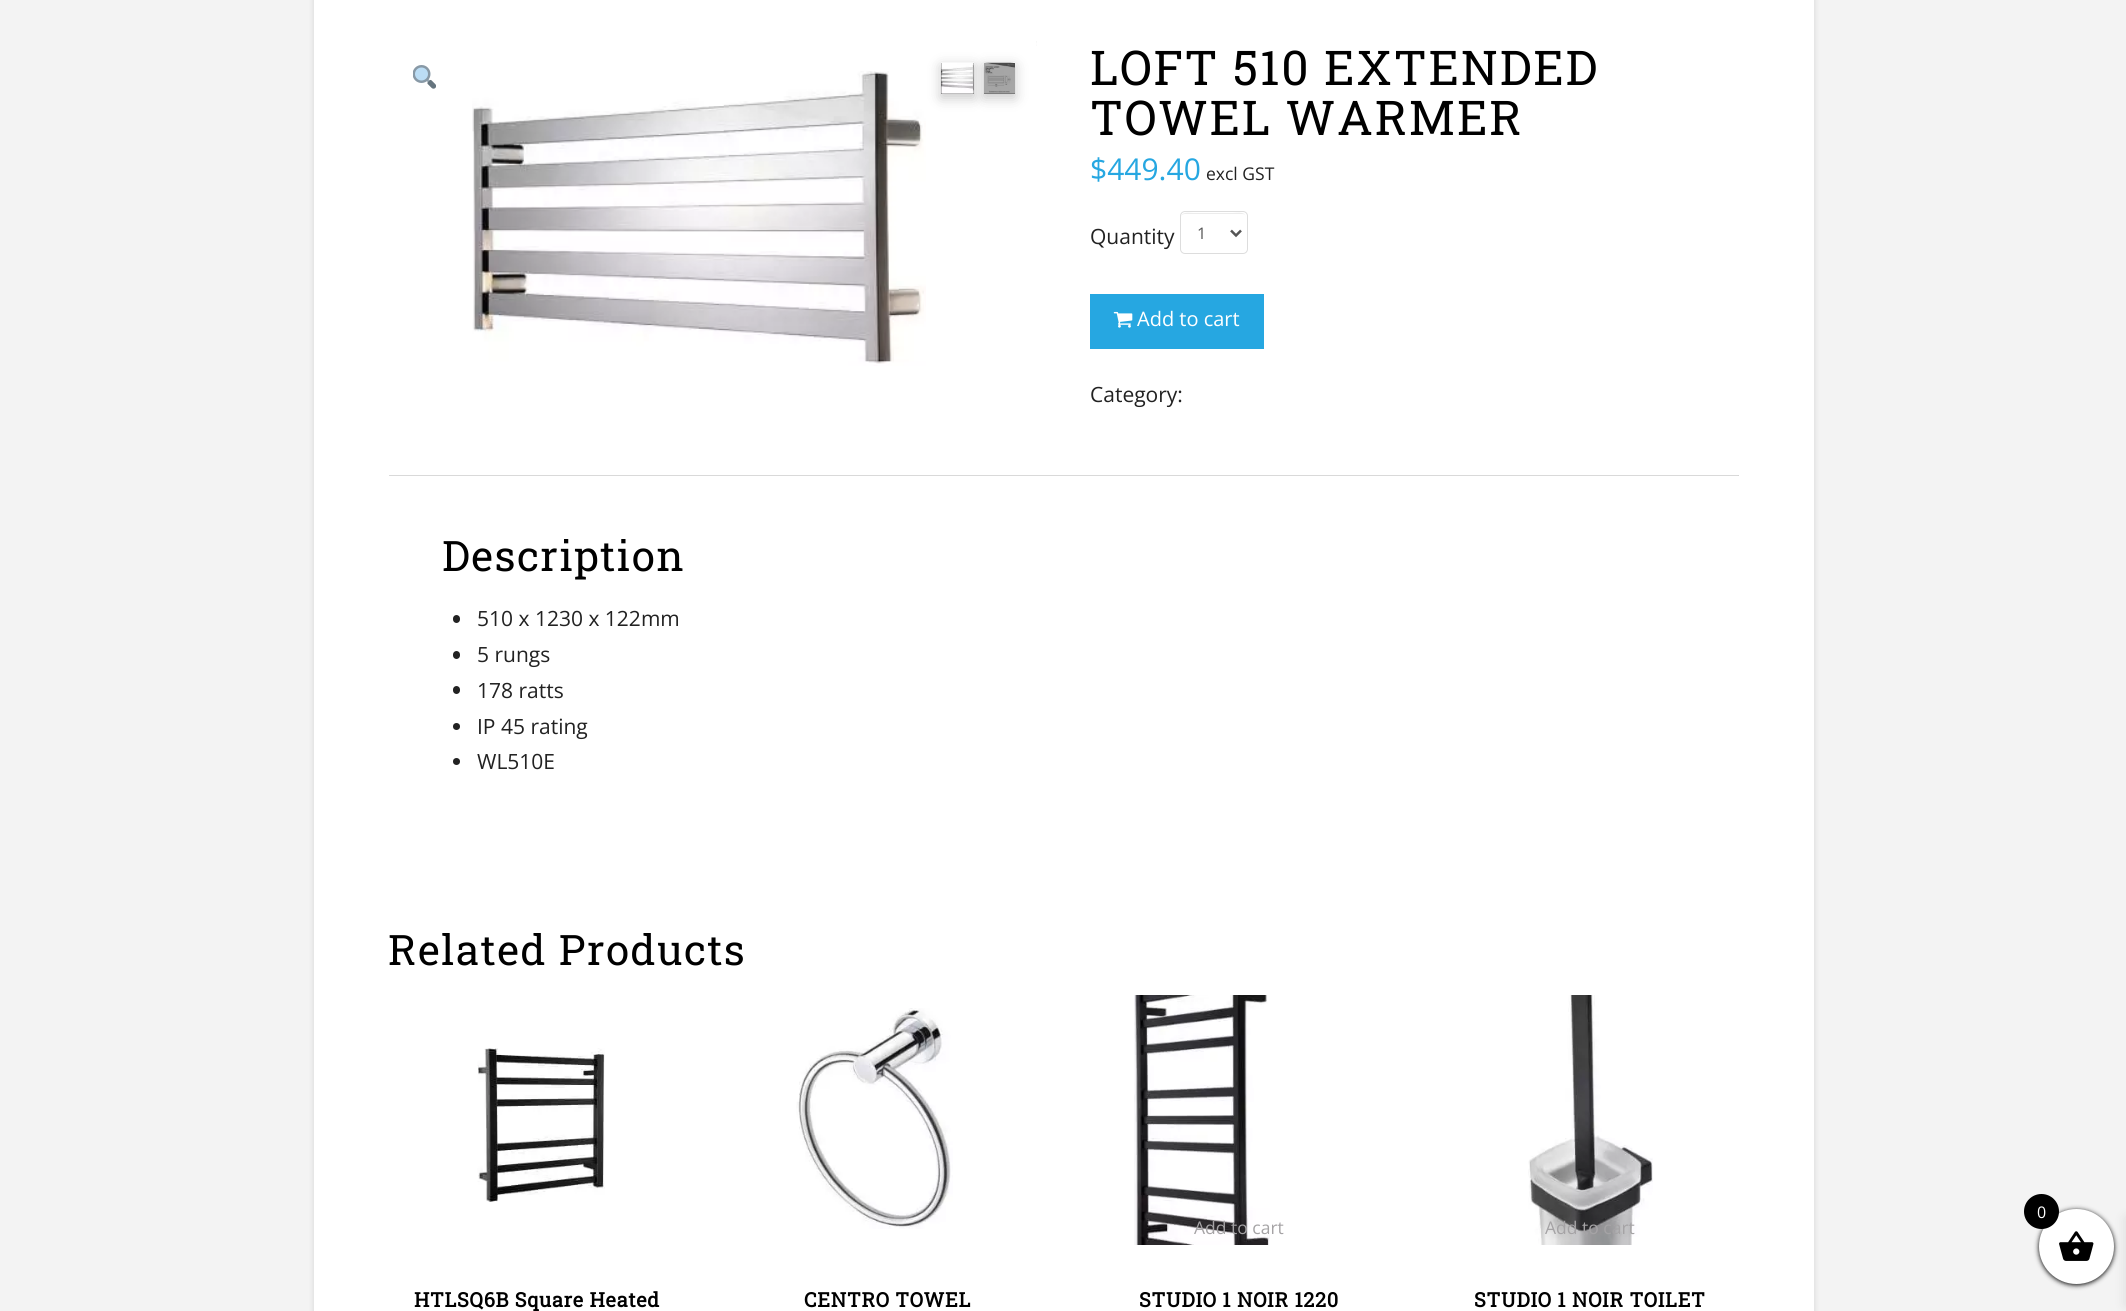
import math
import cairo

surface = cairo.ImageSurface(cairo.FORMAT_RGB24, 2126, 1311)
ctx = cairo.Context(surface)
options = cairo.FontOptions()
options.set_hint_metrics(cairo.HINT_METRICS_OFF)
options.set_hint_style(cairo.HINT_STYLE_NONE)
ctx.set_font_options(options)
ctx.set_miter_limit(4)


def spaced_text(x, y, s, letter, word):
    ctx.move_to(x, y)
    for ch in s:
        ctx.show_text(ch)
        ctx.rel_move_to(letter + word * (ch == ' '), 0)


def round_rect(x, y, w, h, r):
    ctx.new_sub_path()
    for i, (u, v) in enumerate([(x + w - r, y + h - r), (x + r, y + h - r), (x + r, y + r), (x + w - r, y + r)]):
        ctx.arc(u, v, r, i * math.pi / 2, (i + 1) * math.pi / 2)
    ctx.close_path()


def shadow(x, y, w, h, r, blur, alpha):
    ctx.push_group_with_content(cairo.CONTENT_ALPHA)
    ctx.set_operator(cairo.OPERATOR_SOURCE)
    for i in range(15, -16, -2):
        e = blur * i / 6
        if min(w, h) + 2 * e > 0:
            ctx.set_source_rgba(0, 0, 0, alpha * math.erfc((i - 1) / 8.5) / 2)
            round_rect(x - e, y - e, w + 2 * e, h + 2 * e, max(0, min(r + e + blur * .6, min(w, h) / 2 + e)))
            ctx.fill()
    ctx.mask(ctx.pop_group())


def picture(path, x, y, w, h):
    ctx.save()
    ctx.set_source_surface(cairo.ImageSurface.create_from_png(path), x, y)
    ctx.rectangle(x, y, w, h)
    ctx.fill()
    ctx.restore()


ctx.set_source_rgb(0.953, 0.953, 0.953)
ctx.paint()
ctx.set_source_rgb(0, 0, 0)
shadow(314, -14, 1500, 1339, 5, 3, 0.13)
ctx.set_source_rgb(1, 1, 1)
ctx.rectangle(314, 0, 1500, 1311)
ctx.fill()
picture("img1.png", 1036, 41, 1, 5)
picture("img2.png", 472, 71, 454, 295)
picture("img3.png", 413, 65, 23, 24)
ctx.set_source_rgb(0, 0, 0)
shadow(941, 66, 33, 32, 0, 6.5, 0.22)
ctx.set_source_rgb(0, 0, 0)
ctx.rectangle(941, 63, 33, 31)
ctx.fill()
picture("img4.png", 941, 62, 33, 32)
ctx.set_source_rgb(0, 0, 0)
shadow(984, 66, 31, 32, 0, 6.5, 0.22)
ctx.set_source_rgb(0, 0, 0)
ctx.rectangle(984, 63, 31, 31)
ctx.fill()
picture("img5.png", 984, 62, 31, 32)
ctx.select_font_face("Roboto Slab")
ctx.set_font_size(47.9)
spaced_text(1090, 85, "LOFT 510 EXTENDED", 1.75, 0)
spaced_text(1090, 135, "TOWEL WARMER", 1.75, 0)
ctx.select_font_face("Open Sans")
ctx.set_font_size(30)
ctx.set_source_rgb(0.149, 0.655, 0.882)
ctx.move_to(1090, 180)
ctx.show_text("$449.40")
ctx.set_font_size(17.5)
ctx.set_source_rgb(0.133, 0.133, 0.133)
ctx.move_to(1206, 180)
ctx.show_text("excl GST")
ctx.set_font_size(21)
ctx.move_to(1090, 244)
ctx.show_text("Quantity")
ctx.set_source_rgb(0.925, 0.925, 0.925)
ctx.new_path()
ctx.move_to(1185, 214)
ctx.line_to(1242, 214)
ctx.curve_to(1245, 214, 1246, 215, 1246, 218)
ctx.curve_to(1246, 211, 1238, 213, 1232, 213)
ctx.line_to(1194, 213)
ctx.curve_to(1189, 213, 1181, 211, 1181, 218)
ctx.curve_to(1181, 215, 1183, 214, 1185, 214)
ctx.close_path()
ctx.fill()
round_rect(1180.5, 211.5, 67, 42, 4.5)
ctx.set_source_rgb(0.867, 0.867, 0.867)
ctx.set_line_width(1)
ctx.stroke()
ctx.new_path()
ctx.move_to(1231, 230.5)
ctx.line_to(1236, 235.5)
ctx.line_to(1241, 230.5)
ctx.set_source_rgb(0.333, 0.333, 0.333)
ctx.set_line_width(2.5)
ctx.stroke()
ctx.set_font_size(16)
ctx.move_to(1197, 239)
ctx.show_text("1")
ctx.set_source_rgb(0.149, 0.655, 0.882)
ctx.rectangle(1090, 294, 174, 55)
ctx.fill()
picture("img6.png", 1113, 311, 20, 17)
ctx.set_font_size(20)
ctx.set_source_rgb(1, 1, 1)
ctx.move_to(1137, 326)
ctx.show_text("Add to cart")
ctx.set_font_size(21)
ctx.set_source_rgb(0.133, 0.133, 0.133)
ctx.move_to(1090, 402)
ctx.show_text("Category:")
ctx.set_source_rgb(0.851, 0.851, 0.851)
ctx.new_path()
ctx.move_to(389, 475)
ctx.line_to(1739, 475)
ctx.line_to(1738, 476)
ctx.line_to(390, 476)
ctx.close_path()
ctx.fill()
ctx.set_source_rgb(0.788, 0.788, 0.788)
ctx.new_path()
ctx.move_to(1739, 475)
ctx.line_to(1739, 476)
ctx.line_to(1737.5, 476)
ctx.close_path()
ctx.fill()
ctx.set_source_rgb(0.792, 0.792, 0.792)
ctx.new_path()
ctx.move_to(389, 476)
ctx.line_to(389, 475)
ctx.line_to(390, 476)
ctx.close_path()
ctx.fill()
ctx.select_font_face("Roboto Slab")
ctx.set_font_size(42)
ctx.set_source_rgb(0, 0, 0)
spaced_text(442, 571, "Description", 1.5, 0)
ctx.set_source_rgb(0.133, 0.133, 0.133)
round_rect(453, 615, 7, 8, 3.5)
ctx.fill()
ctx.select_font_face("Open Sans")
ctx.set_font_size(21)
ctx.move_to(477, 626)
ctx.show_text("510 x 1230 x 122mm")
round_rect(453, 651, 7, 8, 3.5)
ctx.fill()
ctx.move_to(477, 662)
ctx.show_text("5 rungs")
round_rect(453, 686, 7, 8, 3.5)
ctx.fill()
ctx.move_to(477, 698)
ctx.show_text("178 ratts")
ctx.new_path()
ctx.arc(456.5, 726.5, 3.5, 0, 2 * math.pi)
ctx.fill()
ctx.move_to(477, 734)
ctx.show_text("IP 45 rating")
ctx.new_path()
ctx.arc(456.5, 761.5, 3.5, 0, 2 * math.pi)
ctx.fill()
ctx.move_to(477, 769)
ctx.show_text("WL510E")
ctx.select_font_face("Roboto Slab")
ctx.set_font_size(42)
ctx.set_source_rgb(0, 0, 0)
spaced_text(388, 965, "Related Products", 1.5, 0)
picture("img7.png", 477, 1048, 128, 154)
ctx.select_font_face("Roboto Slab", cairo.FONT_SLANT_NORMAL, cairo.FONT_WEIGHT_BOLD)
ctx.set_font_size(20)
spaced_text(414, 1307, "HTLSQ6B Square Heated", 0.7, 0)
picture("img8.png", 796, 1008, 157, 221)
spaced_text(804, 1307, "CENTRO TOWEL", 0.7, 0)
picture("img9.png", 1134, 995, 136, 250)
ctx.select_font_face("Open Sans")
ctx.set_font_size(17.5)
ctx.set_source_rgb(0.647, 0.639, 0.647)
ctx.move_to(1194, 1234)
ctx.show_text("Add to cart")
ctx.select_font_face("Roboto Slab", cairo.FONT_SLANT_NORMAL, cairo.FONT_WEIGHT_BOLD)
ctx.set_font_size(20)
ctx.set_source_rgb(0, 0, 0)
spaced_text(1139, 1307, "STUDIO 1 NOIR 1220", 0.7, 0)
picture("img10.png", 1528, 995, 125, 250)
ctx.select_font_face("Open Sans")
ctx.set_font_size(17.5)
ctx.set_source_rgb(0.647, 0.639, 0.647)
ctx.move_to(1545, 1234)
ctx.show_text("Add to cart")
ctx.select_font_face("Roboto Slab", cairo.FONT_SLANT_NORMAL, cairo.FONT_WEIGHT_BOLD)
ctx.set_font_size(20)
ctx.set_source_rgb(0, 0, 0)
spaced_text(1474, 1307, "STUDIO 1 NOIR TOILET", 0.7, 0)
ctx.set_source_rgb(0, 0, 0)
shadow(2039, 1210, 75, 75, 37.5, 2.5, 1)
shadow(2126, 1218, 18, 87, 0, 6, 0.1)
ctx.set_source_rgb(1, 1, 1)
ctx.arc(2076.5, 1246.5, 37.5, 0, 2 * math.pi)
ctx.fill()
ctx.set_source_rgb(0, 0, 0)
ctx.arc(2041.5, 1211.5, 17.5, 0, 2 * math.pi)
ctx.fill()
ctx.select_font_face("Open Sans")
ctx.set_font_size(16)
ctx.set_source_rgb(1, 1, 1)
ctx.move_to(2037, 1218)
ctx.show_text("0")
picture("img11.png", 2059, 1231, 35, 30)
surface.write_to_png("page.png")
